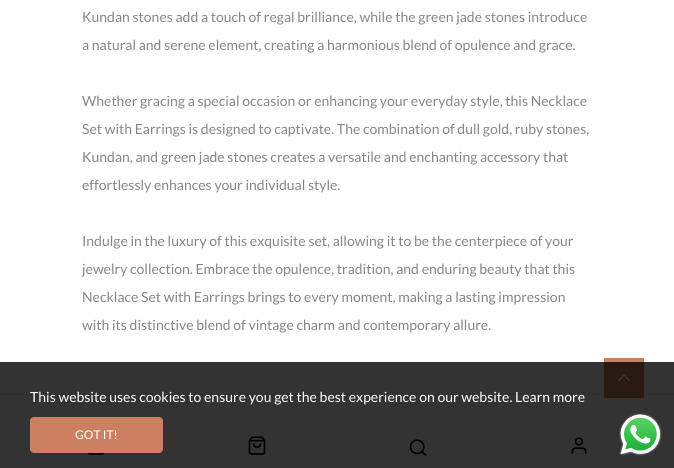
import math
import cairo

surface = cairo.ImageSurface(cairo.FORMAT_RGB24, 674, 468)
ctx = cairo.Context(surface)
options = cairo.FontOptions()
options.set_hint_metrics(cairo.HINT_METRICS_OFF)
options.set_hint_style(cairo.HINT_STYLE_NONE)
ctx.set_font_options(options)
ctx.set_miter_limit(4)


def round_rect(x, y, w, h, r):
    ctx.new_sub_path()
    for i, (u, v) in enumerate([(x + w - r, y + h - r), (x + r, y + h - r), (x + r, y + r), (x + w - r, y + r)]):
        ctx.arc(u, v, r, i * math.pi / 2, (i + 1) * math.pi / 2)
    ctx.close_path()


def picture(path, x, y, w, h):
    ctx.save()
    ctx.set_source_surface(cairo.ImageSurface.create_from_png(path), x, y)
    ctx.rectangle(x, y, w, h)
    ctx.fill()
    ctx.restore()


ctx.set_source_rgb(1, 1, 1)
ctx.paint()
ctx.set_source_rgb(0.2, 0.2, 0.2)
ctx.rectangle(0, 362, 674, 106)
ctx.fill()
ctx.set_source_rgb(0.176, 0.176, 0.176)
ctx.rectangle(0, 394, 674, 1)
ctx.fill()
ctx.select_font_face("Lato")
ctx.set_font_size(14)
ctx.set_source_rgb(0.525, 0.525, 0.525)
ctx.move_to(82, 22)
ctx.show_text("Kundan stones add a touch of regal brilliance, while the green jade stones introduce")
ctx.move_to(82, 50)
ctx.show_text("a natural and serene element, creating a harmonious blend of opulence and grace.")
ctx.move_to(82, 106)
ctx.show_text("Whether gracing a special occasion or enhancing your everyday style, this Necklace")
ctx.move_to(82, 134)
ctx.show_text("Set with Earrings is designed to captivate. The combination of dull gold, ruby stones,")
ctx.move_to(82, 162)
ctx.show_text("Kundan, and green jade stones creates a versatile and enchanting accessory that")
ctx.move_to(82, 190)
ctx.show_text("effortlessly enhances your individual style.")
ctx.move_to(82, 246)
ctx.show_text("Indulge in the luxury of this exquisite set, allowing it to be the centerpiece of your")
ctx.move_to(82, 274)
ctx.show_text("jewelry collection. Embrace the opulence, tradition, and enduring beauty that this")
ctx.move_to(82, 302)
ctx.show_text("Necklace Set with Earrings brings to every moment, making a lasting impression")
ctx.move_to(82, 330)
ctx.show_text("with its distinctive blend of vintage charm and contemporary allure.")
ctx.set_source_rgb(0.796, 0.506, 0.38)
ctx.rectangle(604, 358, 40, 4)
ctx.fill()
ctx.set_source_rgb(0.161, 0.102, 0.075)
ctx.rectangle(604, 362, 40, 36)
ctx.fill()
picture("img1.png", 618, 374, 12, 7)
ctx.set_source_rgb(1, 1, 1)
ctx.move_to(30, 402)
ctx.show_text("This website uses cookies to ensure you get the best experience on our website. Learn more")
ctx.set_source_rgb(0.796, 0.506, 0.38)
round_rect(30, 417, 133, 36, 4)
ctx.fill()
ctx.set_font_size(12)
ctx.set_source_rgb(1, 1, 1)
ctx.move_to(75, 439)
ctx.show_text("GOT IT!")
picture("img2.png", 619, 413, 43, 43)
picture("img3.png", 87, 453, 18, 2)
picture("img4.png", 248, 436, 18, 19)
picture("img5.png", 409, 439, 18, 17)
picture("img6.png", 571, 437, 16, 17)
surface.write_to_png("page.png")
